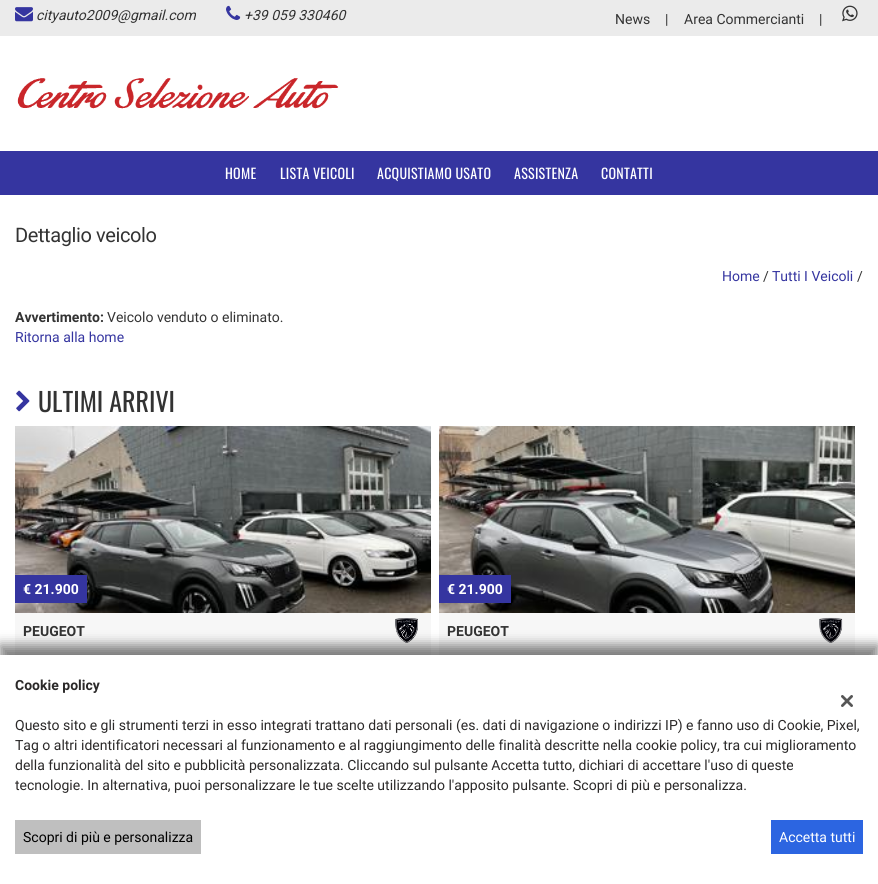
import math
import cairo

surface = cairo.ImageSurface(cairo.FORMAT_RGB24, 878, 884)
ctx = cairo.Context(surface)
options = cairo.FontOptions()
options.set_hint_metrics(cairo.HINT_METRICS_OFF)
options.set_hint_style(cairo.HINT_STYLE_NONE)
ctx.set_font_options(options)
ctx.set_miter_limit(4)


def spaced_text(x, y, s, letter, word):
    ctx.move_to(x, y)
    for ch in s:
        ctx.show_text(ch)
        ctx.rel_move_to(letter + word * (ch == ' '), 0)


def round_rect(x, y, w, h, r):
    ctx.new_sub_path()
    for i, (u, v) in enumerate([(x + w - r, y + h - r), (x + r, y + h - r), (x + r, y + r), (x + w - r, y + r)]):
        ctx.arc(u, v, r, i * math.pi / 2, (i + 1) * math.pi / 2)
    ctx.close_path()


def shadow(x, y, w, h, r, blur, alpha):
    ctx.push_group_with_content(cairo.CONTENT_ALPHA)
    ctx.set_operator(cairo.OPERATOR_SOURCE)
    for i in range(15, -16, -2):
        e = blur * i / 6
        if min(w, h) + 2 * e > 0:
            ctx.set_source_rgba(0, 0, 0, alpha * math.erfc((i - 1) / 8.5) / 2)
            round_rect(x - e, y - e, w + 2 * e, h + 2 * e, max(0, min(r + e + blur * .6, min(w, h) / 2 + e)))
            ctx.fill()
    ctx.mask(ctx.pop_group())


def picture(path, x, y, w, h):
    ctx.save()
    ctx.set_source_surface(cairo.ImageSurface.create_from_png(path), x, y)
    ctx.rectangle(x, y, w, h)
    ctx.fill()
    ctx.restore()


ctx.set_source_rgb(1, 1, 1)
ctx.paint()
ctx.set_source_rgb(0.918, 0.918, 0.918)
ctx.rectangle(0, 0, 878, 36)
ctx.fill()
picture("img1.png", 15, 7, 18, 15)
ctx.select_font_face("Roboto", cairo.FONT_SLANT_ITALIC)
ctx.set_font_size(14)
ctx.set_source_rgb(0.2, 0.2, 0.2)
ctx.move_to(36, 20)
ctx.show_text("cityauto2009@gmail.com")
picture("img2.png", 226, 5, 15, 15)
ctx.move_to(244, 20)
ctx.show_text("+39 059 330460")
ctx.select_font_face("Roboto")
ctx.move_to(615, 24)
ctx.show_text("News")
ctx.move_to(665, 24)
ctx.show_text("|")
ctx.move_to(684, 24)
ctx.show_text("Area Commercianti")
ctx.move_to(819, 24)
ctx.show_text("|")
picture("img3.png", 842, 5, 16, 17)
picture("img4.png", 17, 78, 322, 31)
ctx.set_source_rgb(0.208, 0.208, 0.627)
ctx.rectangle(0, 151, 878, 44)
ctx.fill()
ctx.select_font_face("Oswald")
ctx.set_source_rgb(1, 1, 1)
spaced_text(225, 179, "HOME", 0.25, 0)
spaced_text(280, 179, "LISTA VEICOLI", 0.25, 0)
spaced_text(377, 179, "ACQUISTIAMO USATO", 0.25, 0)
spaced_text(514, 179, "ASSISTENZA", 0.25, 0)
spaced_text(601, 179, "CONTATTI", 0.25, 0)
ctx.select_font_face("Roboto")
ctx.set_font_size(20)
ctx.set_source_rgb(0.2, 0.2, 0.2)
spaced_text(15, 242, "Dettaglio veicolo", -0.4, 0)
ctx.set_font_size(14)
ctx.set_source_rgb(0.208, 0.208, 0.627)
ctx.move_to(722, 281)
ctx.show_text("Home")
ctx.set_source_rgb(0.2, 0.2, 0.2)
ctx.move_to(763, 281)
ctx.show_text("/")
ctx.set_source_rgb(0.208, 0.208, 0.627)
ctx.move_to(772, 281)
ctx.show_text("Tutti I Veicoli")
ctx.set_source_rgb(0.2, 0.2, 0.2)
ctx.move_to(857, 281)
ctx.show_text("/")
ctx.select_font_face("Roboto", cairo.FONT_SLANT_NORMAL, cairo.FONT_WEIGHT_BOLD)
ctx.move_to(15, 322)
ctx.show_text("Avvertimento:")
ctx.select_font_face("Roboto")
ctx.move_to(107, 322)
ctx.show_text("Veicolo venduto o eliminato.")
ctx.set_source_rgb(0.208, 0.208, 0.627)
ctx.move_to(15, 342)
ctx.show_text("Ritorna alla home")
picture("img5.png", 16, 390, 14, 22)
ctx.select_font_face("Oswald")
ctx.set_font_size(26)
ctx.set_source_rgb(0.2, 0.2, 0.2)
ctx.move_to(38, 412)
ctx.show_text("ULTIMI ARRIVI")
ctx.set_source_rgb(0.965, 0.965, 0.965)
ctx.rectangle(15, 613, 416, 42)
ctx.fill()
picture("img6.png", 15, 426, 416, 187)
ctx.set_source_rgb(0.208, 0.208, 0.627)
ctx.rectangle(15, 575, 72, 28)
ctx.fill()
ctx.select_font_face("Roboto", cairo.FONT_SLANT_NORMAL, cairo.FONT_WEIGHT_BOLD)
ctx.set_font_size(14)
ctx.set_source_rgb(1, 1, 1)
ctx.move_to(23, 594)
ctx.show_text("€ 21.900")
ctx.set_source_rgb(0.2, 0.2, 0.2)
ctx.move_to(23, 636)
ctx.show_text("PEUGEOT")
picture("img7.png", 395, 618, 23, 25)
ctx.set_source_rgb(0.965, 0.965, 0.965)
ctx.rectangle(439, 613, 416, 42)
ctx.fill()
picture("img8.png", 439, 426, 416, 187)
ctx.set_source_rgb(0.208, 0.208, 0.627)
ctx.rectangle(439, 575, 72, 28)
ctx.fill()
ctx.set_source_rgb(1, 1, 1)
ctx.move_to(447, 594)
ctx.show_text("€ 21.900")
ctx.set_source_rgb(0.2, 0.2, 0.2)
ctx.move_to(447, 636)
ctx.show_text("PEUGEOT")
picture("img9.png", 819, 617, 24, 26)
ctx.set_source_rgb(0, 0, 0)
shadow(0, 645, 878, 229, 0, 6, 0.5)
ctx.set_source_rgb(1, 1, 1)
ctx.rectangle(0, 655, 878, 229)
ctx.fill()
ctx.set_source_rgb(0.169, 0.161, 0.161)
ctx.move_to(15, 690)
ctx.show_text("Cookie policy")
ctx.select_font_face("Roboto")
ctx.move_to(15, 730)
ctx.show_text("Questo sito e gli strumenti terzi in esso integrati trattano dati personali (es. dati di navigazione o indirizzi IP) e fanno uso di Cookie, Pixel,")
ctx.move_to(15, 750)
ctx.show_text("Tag o altri identificatori necessari al funzionamento e al raggiungimento delle finalità descritte nella cookie policy, tra cui miglioramento")
ctx.move_to(15, 770)
ctx.show_text("della funzionalità del sito e pubblicità personalizzata. Cliccando sul pulsante Accetta tutto, dichiari di accettare l'uso di queste")
ctx.move_to(15, 790)
ctx.show_text("tecnologie. In alternativa, puoi personalizzare le tue scelte utilizzando l'apposito pulsante. Scopri di più e personalizza.")
ctx.set_source_rgb(0.749, 0.749, 0.749)
ctx.rectangle(15, 820, 186, 34)
ctx.fill()
ctx.set_source_rgb(0, 0, 0)
ctx.move_to(23, 842)
ctx.show_text("Scopri di più e personalizza")
ctx.set_source_rgb(0.173, 0.396, 0.882)
ctx.rectangle(771, 820, 92, 34)
ctx.fill()
ctx.set_source_rgb(1, 1, 1)
ctx.move_to(779, 842)
ctx.show_text("Accetta tutti")
picture("img10.png", 841, 695, 12, 12)
surface.write_to_png("page.png")
